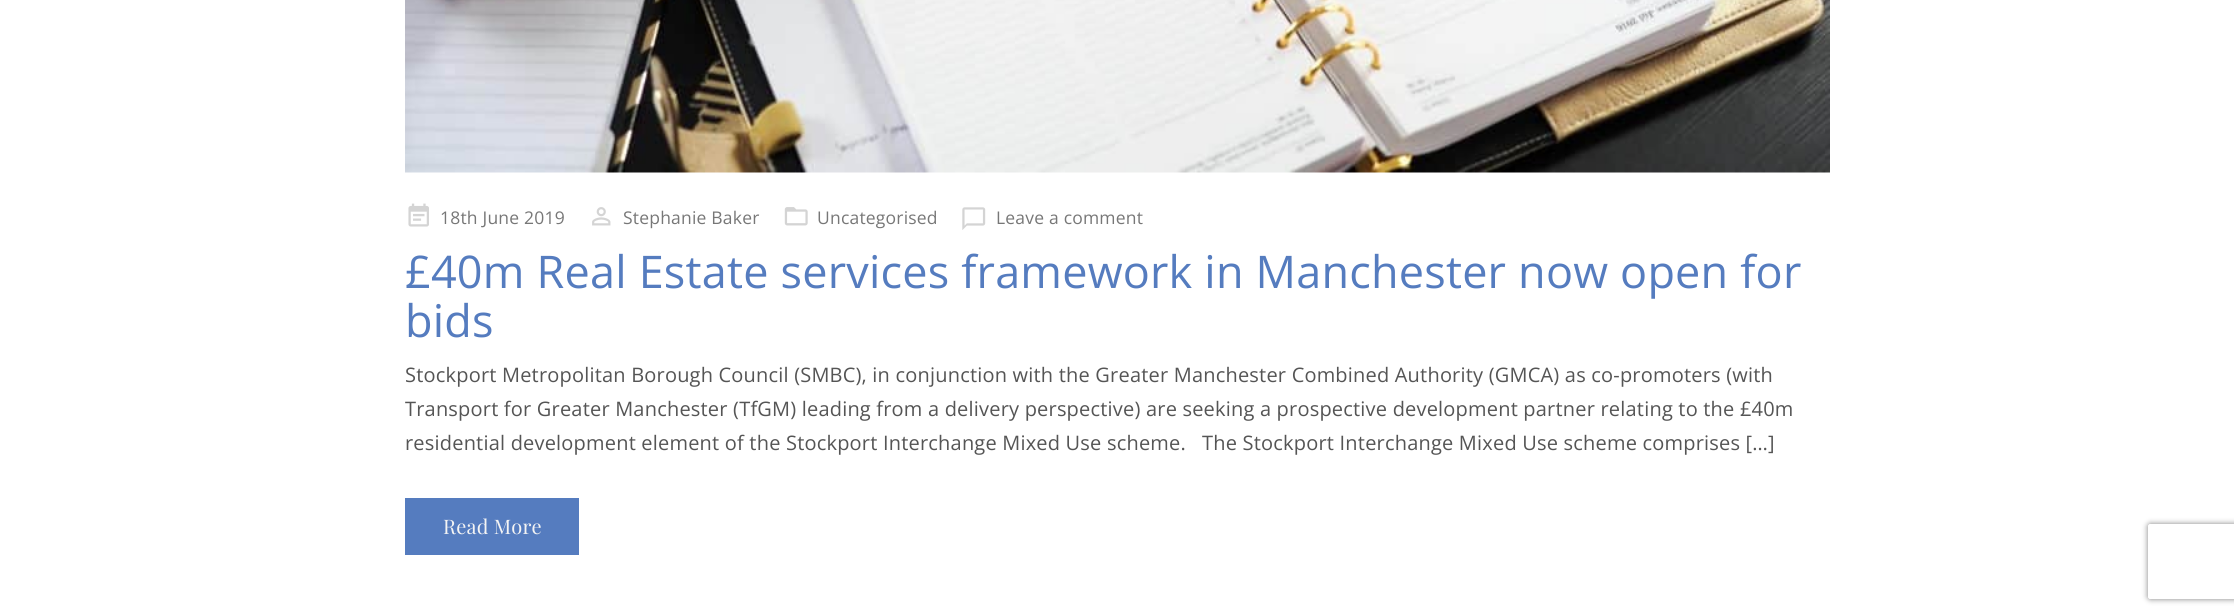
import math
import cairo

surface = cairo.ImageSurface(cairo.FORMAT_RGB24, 2234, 616)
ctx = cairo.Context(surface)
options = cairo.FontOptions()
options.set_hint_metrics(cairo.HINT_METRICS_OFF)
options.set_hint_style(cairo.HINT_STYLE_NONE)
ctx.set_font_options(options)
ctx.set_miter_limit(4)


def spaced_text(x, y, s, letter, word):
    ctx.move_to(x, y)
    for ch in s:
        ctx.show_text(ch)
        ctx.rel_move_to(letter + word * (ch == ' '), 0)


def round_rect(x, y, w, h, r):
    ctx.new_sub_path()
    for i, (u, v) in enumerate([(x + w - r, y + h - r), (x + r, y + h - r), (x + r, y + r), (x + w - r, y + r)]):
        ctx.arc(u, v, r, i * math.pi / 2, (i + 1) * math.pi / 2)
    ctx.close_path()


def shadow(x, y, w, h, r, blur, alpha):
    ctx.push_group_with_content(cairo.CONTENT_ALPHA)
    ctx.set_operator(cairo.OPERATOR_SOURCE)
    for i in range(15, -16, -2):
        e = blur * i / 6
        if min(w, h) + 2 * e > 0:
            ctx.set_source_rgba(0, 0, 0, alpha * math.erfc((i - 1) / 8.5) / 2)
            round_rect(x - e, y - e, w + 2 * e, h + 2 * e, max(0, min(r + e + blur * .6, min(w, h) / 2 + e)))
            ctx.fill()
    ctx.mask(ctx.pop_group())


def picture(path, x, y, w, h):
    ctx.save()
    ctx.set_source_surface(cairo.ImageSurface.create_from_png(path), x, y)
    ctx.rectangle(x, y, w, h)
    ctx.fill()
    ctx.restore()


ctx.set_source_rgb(1, 1, 1)
ctx.paint()
picture("img1.png", 405, 0, 1425, 173)
picture("img2.png", 408, 203, 21, 24)
ctx.select_font_face("Open Sans")
ctx.set_font_size(17.5)
ctx.set_source_rgb(0.467, 0.467, 0.467)
spaced_text(440, 224, "18th June 2019", 0.2, 0)
picture("img3.png", 592, 207, 19, 19)
spaced_text(623, 224, "Stephanie Baker", 0.2, 0)
picture("img4.png", 784, 207, 24, 19)
spaced_text(817, 224, "Uncategorised", 0.2, 0)
picture("img5.png", 962, 207, 24, 23)
spaced_text(996, 224, "Leave a comment", 0.2, 0)
ctx.set_font_size(45)
ctx.set_source_rgb(0.333, 0.486, 0.749)
spaced_text(405, 288, "£40m Real Estate services framework in Manchester now open for", 0.2, 0)
spaced_text(405, 337, "bids", 0.2, 0)
ctx.set_font_size(20)
ctx.set_source_rgb(0.333, 0.333, 0.333)
spaced_text(405, 382, "Stockport Metropolitan Borough Council (SMBC), in conjunction with the Greater Manchester Combined Authority (GMCA) as co-promoters (with", 0.2, 0)
spaced_text(405, 416, "Transport for Greater Manchester (TfGM) leading from a delivery perspective) are seeking a prospective development partner relating to the £40m", 0.2, 0)
spaced_text(405, 450, "residential development element of the Stockport Interchange Mixed Use scheme.   The Stockport Interchange Mixed Use scheme comprises […]", 0.2, 0)
ctx.set_source_rgb(0.333, 0.486, 0.749)
ctx.rectangle(405, 498, 174, 57)
ctx.fill()
ctx.select_font_face("Playfair Display")
ctx.set_source_rgb(0.957, 0.957, 0.957)
spaced_text(443, 534, "Read More", 0.2, 0)
ctx.save()
ctx.set_fill_rule(cairo.FILL_RULE_EVEN_ODD)
ctx.new_path()
ctx.move_to(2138, 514)
ctx.line_to(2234, 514)
ctx.line_to(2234, 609)
ctx.line_to(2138, 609)
ctx.close_path()
ctx.move_to(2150.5, 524)
ctx.line_to(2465.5, 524)
ctx.curve_to(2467, 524, 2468, 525, 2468, 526.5)
ctx.line_to(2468, 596.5)
ctx.curve_to(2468, 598, 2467, 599, 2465.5, 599)
ctx.line_to(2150.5, 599)
ctx.curve_to(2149, 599, 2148, 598, 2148, 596.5)
ctx.line_to(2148, 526.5)
ctx.curve_to(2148, 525, 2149, 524, 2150.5, 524)
ctx.close_path()
ctx.clip()
ctx.set_source_rgb(0.502, 0.502, 0.502)
shadow(2148, 524, 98, 75, 2.5, 3, 1)
ctx.restore()
surface.write_to_png("page.png")
